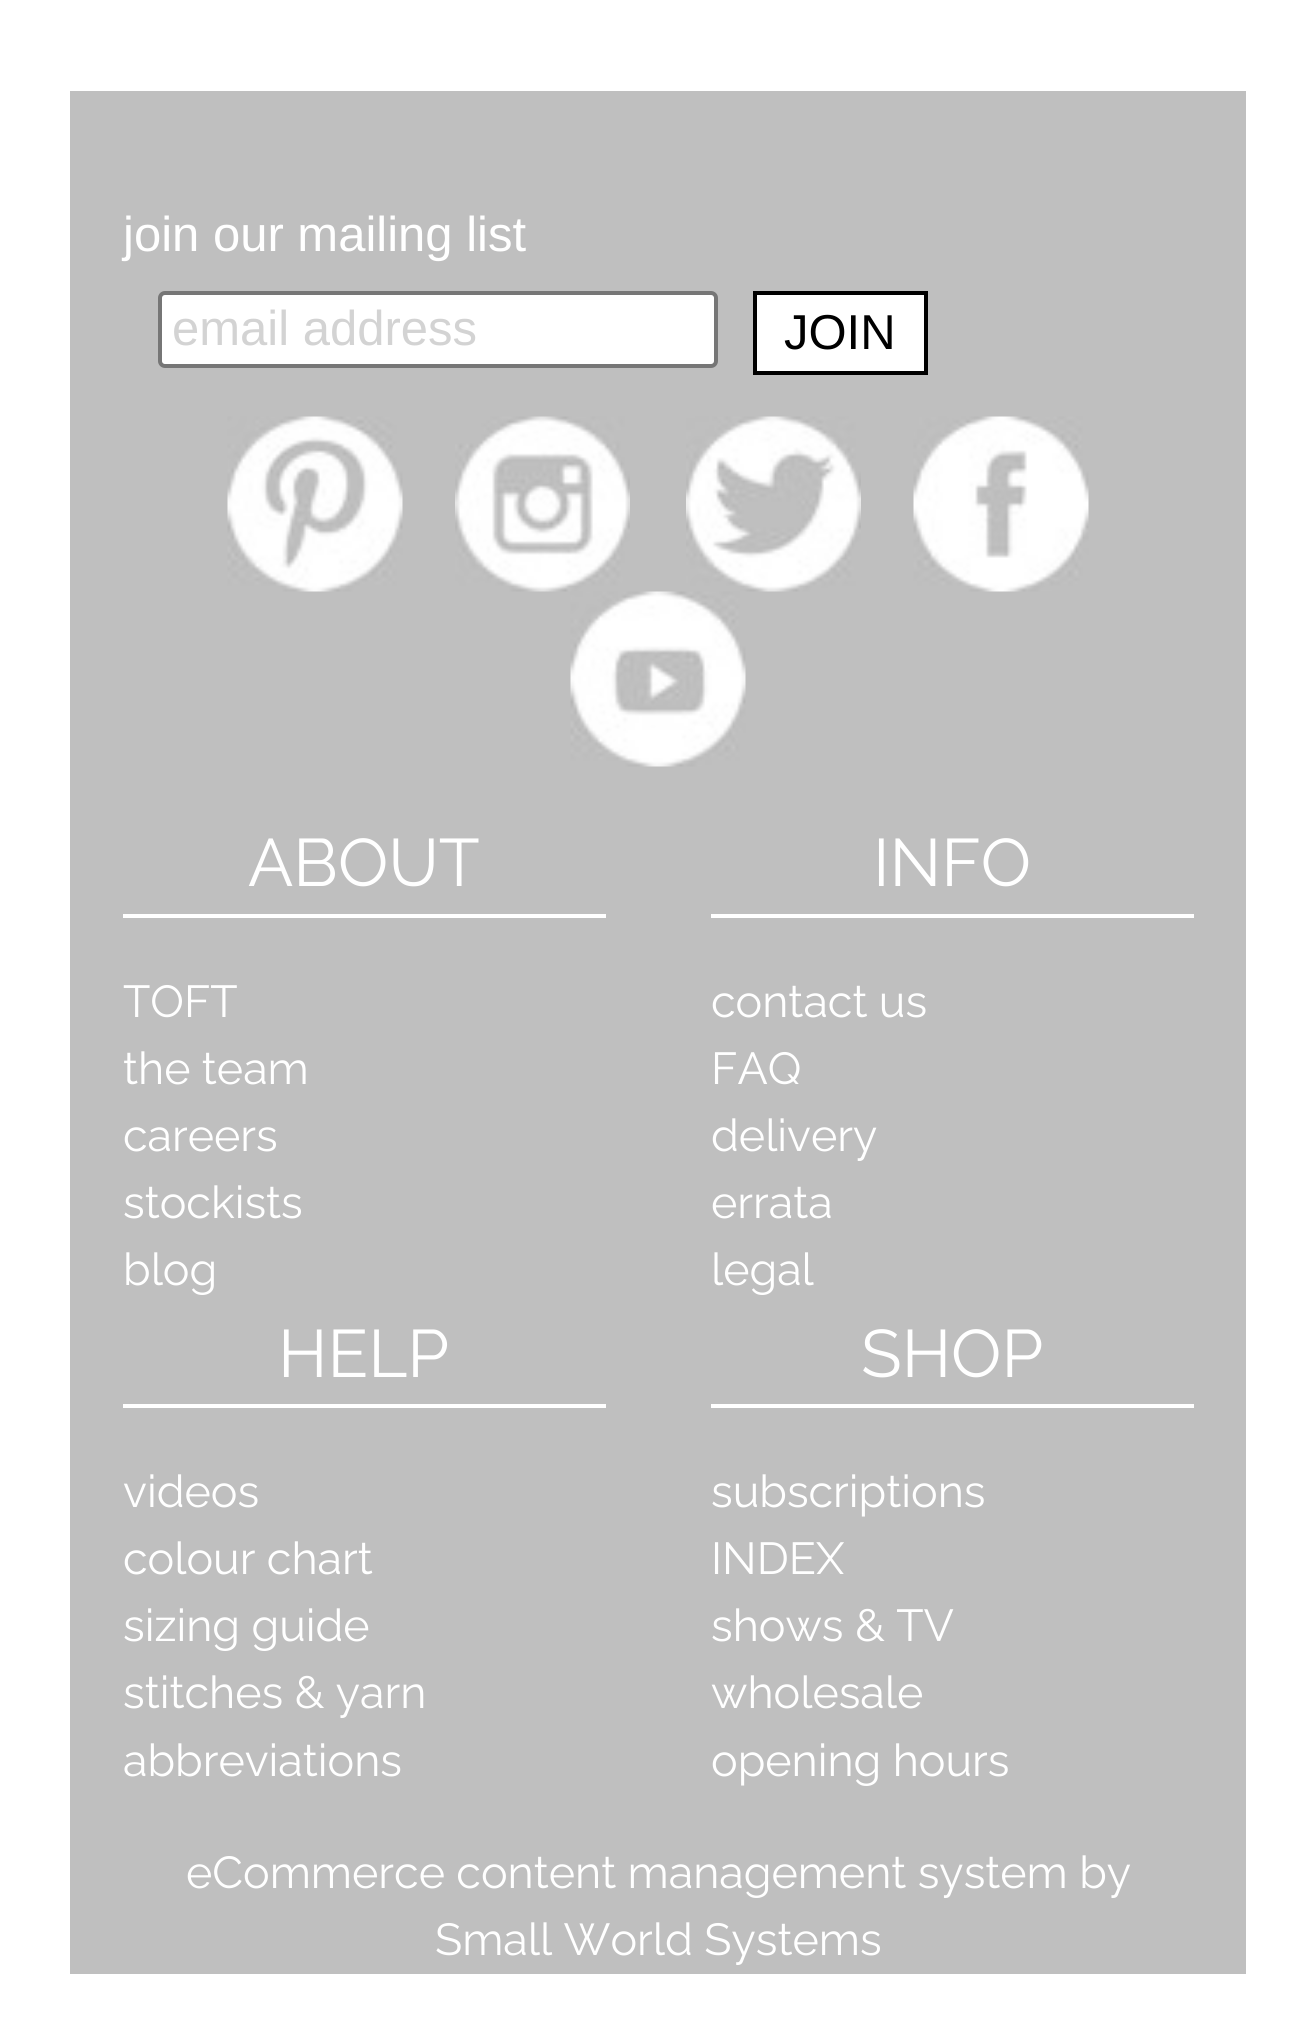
import math
import cairo

surface = cairo.ImageSurface(cairo.FORMAT_RGB24, 1314, 2041)
ctx = cairo.Context(surface)
options = cairo.FontOptions()
options.set_hint_metrics(cairo.HINT_METRICS_OFF)
options.set_hint_style(cairo.HINT_STYLE_NONE)
ctx.set_font_options(options)
ctx.set_miter_limit(4)


def round_rect(x, y, w, h, r):
    ctx.new_sub_path()
    for i, (u, v) in enumerate([(x + w - r, y + h - r), (x + r, y + h - r), (x + r, y + r), (x + w - r, y + r)]):
        ctx.arc(u, v, r, i * math.pi / 2, (i + 1) * math.pi / 2)
    ctx.close_path()


def picture(path, x, y, w, h):
    ctx.save()
    ctx.set_source_surface(cairo.ImageSurface.create_from_png(path), x, y)
    ctx.rectangle(x, y, w, h)
    ctx.fill()
    ctx.restore()


ctx.set_source_rgb(1, 1, 1)
ctx.paint()
ctx.set_source_rgb(0.749, 0.749, 0.749)
ctx.rectangle(70, 91, 1176, 1883)
ctx.fill()
ctx.select_font_face("Liberation Sans")
ctx.set_font_size(49)
ctx.set_source_rgb(1, 1, 1)
ctx.move_to(123, 251)
ctx.show_text("join our mailing list")
round_rect(160, 293, 556, 73, 5)
ctx.fill_preserve()
ctx.set_source_rgb(0.463, 0.463, 0.463)
ctx.set_line_width(4)
ctx.stroke()
ctx.set_source_rgb(0.827, 0.827, 0.827)
ctx.move_to(172, 345)
ctx.show_text("email address")
ctx.set_source_rgb(1, 1, 1)
ctx.rectangle(755, 293, 171, 80)
ctx.fill_preserve()
ctx.set_source_rgb(0, 0, 0)
ctx.stroke()
ctx.move_to(784, 349)
ctx.show_text("JOIN")
picture("img1.png", 227, 416, 176, 176)
picture("img2.png", 455, 416, 175, 176)
picture("img3.png", 686, 416, 175, 176)
picture("img4.png", 913, 416, 176, 176)
picture("img5.png", 570, 591, 176, 176)
ctx.set_source_rgb(1, 1, 1)
ctx.rectangle(123, 914, 483, 4)
ctx.fill()
ctx.select_font_face("Raleway")
ctx.set_font_size(67)
ctx.move_to(248, 886)
ctx.show_text("ABOUT")
ctx.set_font_size(44.8)
ctx.move_to(123, 1017)
ctx.show_text("TOFT")
ctx.move_to(123, 1084)
ctx.show_text("the team")
ctx.move_to(123, 1151)
ctx.show_text("careers")
ctx.move_to(123, 1218)
ctx.show_text("stockists")
ctx.move_to(123, 1285)
ctx.show_text("blog")
ctx.rectangle(711, 914, 483, 4)
ctx.fill()
ctx.set_font_size(67)
ctx.move_to(873, 886)
ctx.show_text("INFO")
ctx.set_font_size(44.8)
ctx.move_to(711, 1017)
ctx.show_text("contact us")
ctx.move_to(711, 1084)
ctx.show_text("FAQ")
ctx.move_to(711, 1151)
ctx.show_text("delivery")
ctx.move_to(711, 1218)
ctx.show_text("errata")
ctx.move_to(711, 1285)
ctx.show_text("legal")
ctx.rectangle(123, 1404, 483, 4)
ctx.fill()
ctx.set_font_size(67)
ctx.move_to(278, 1377)
ctx.show_text("HELP")
ctx.set_font_size(44.8)
ctx.move_to(123, 1507)
ctx.show_text("videos")
ctx.move_to(123, 1574)
ctx.show_text("colour chart")
ctx.move_to(123, 1641)
ctx.show_text("sizing guide")
ctx.move_to(123, 1708)
ctx.show_text("stitches & yarn")
ctx.move_to(123, 1776)
ctx.show_text("abbreviations")
ctx.rectangle(711, 1404, 483, 4)
ctx.fill()
ctx.set_font_size(67)
ctx.move_to(861, 1377)
ctx.show_text("SHOP")
ctx.set_font_size(44.8)
ctx.move_to(711, 1507)
ctx.show_text("subscriptions")
ctx.move_to(711, 1574)
ctx.show_text("INDEX")
ctx.move_to(711, 1641)
ctx.show_text("shows & TV")
ctx.move_to(711, 1708)
ctx.show_text("wholesale")
ctx.move_to(711, 1776)
ctx.show_text("opening hours")
ctx.move_to(186, 1888)
ctx.show_text("eCommerce content management system by")
ctx.move_to(435, 1955)
ctx.show_text("Small World Systems")
surface.write_to_png("page.png")
